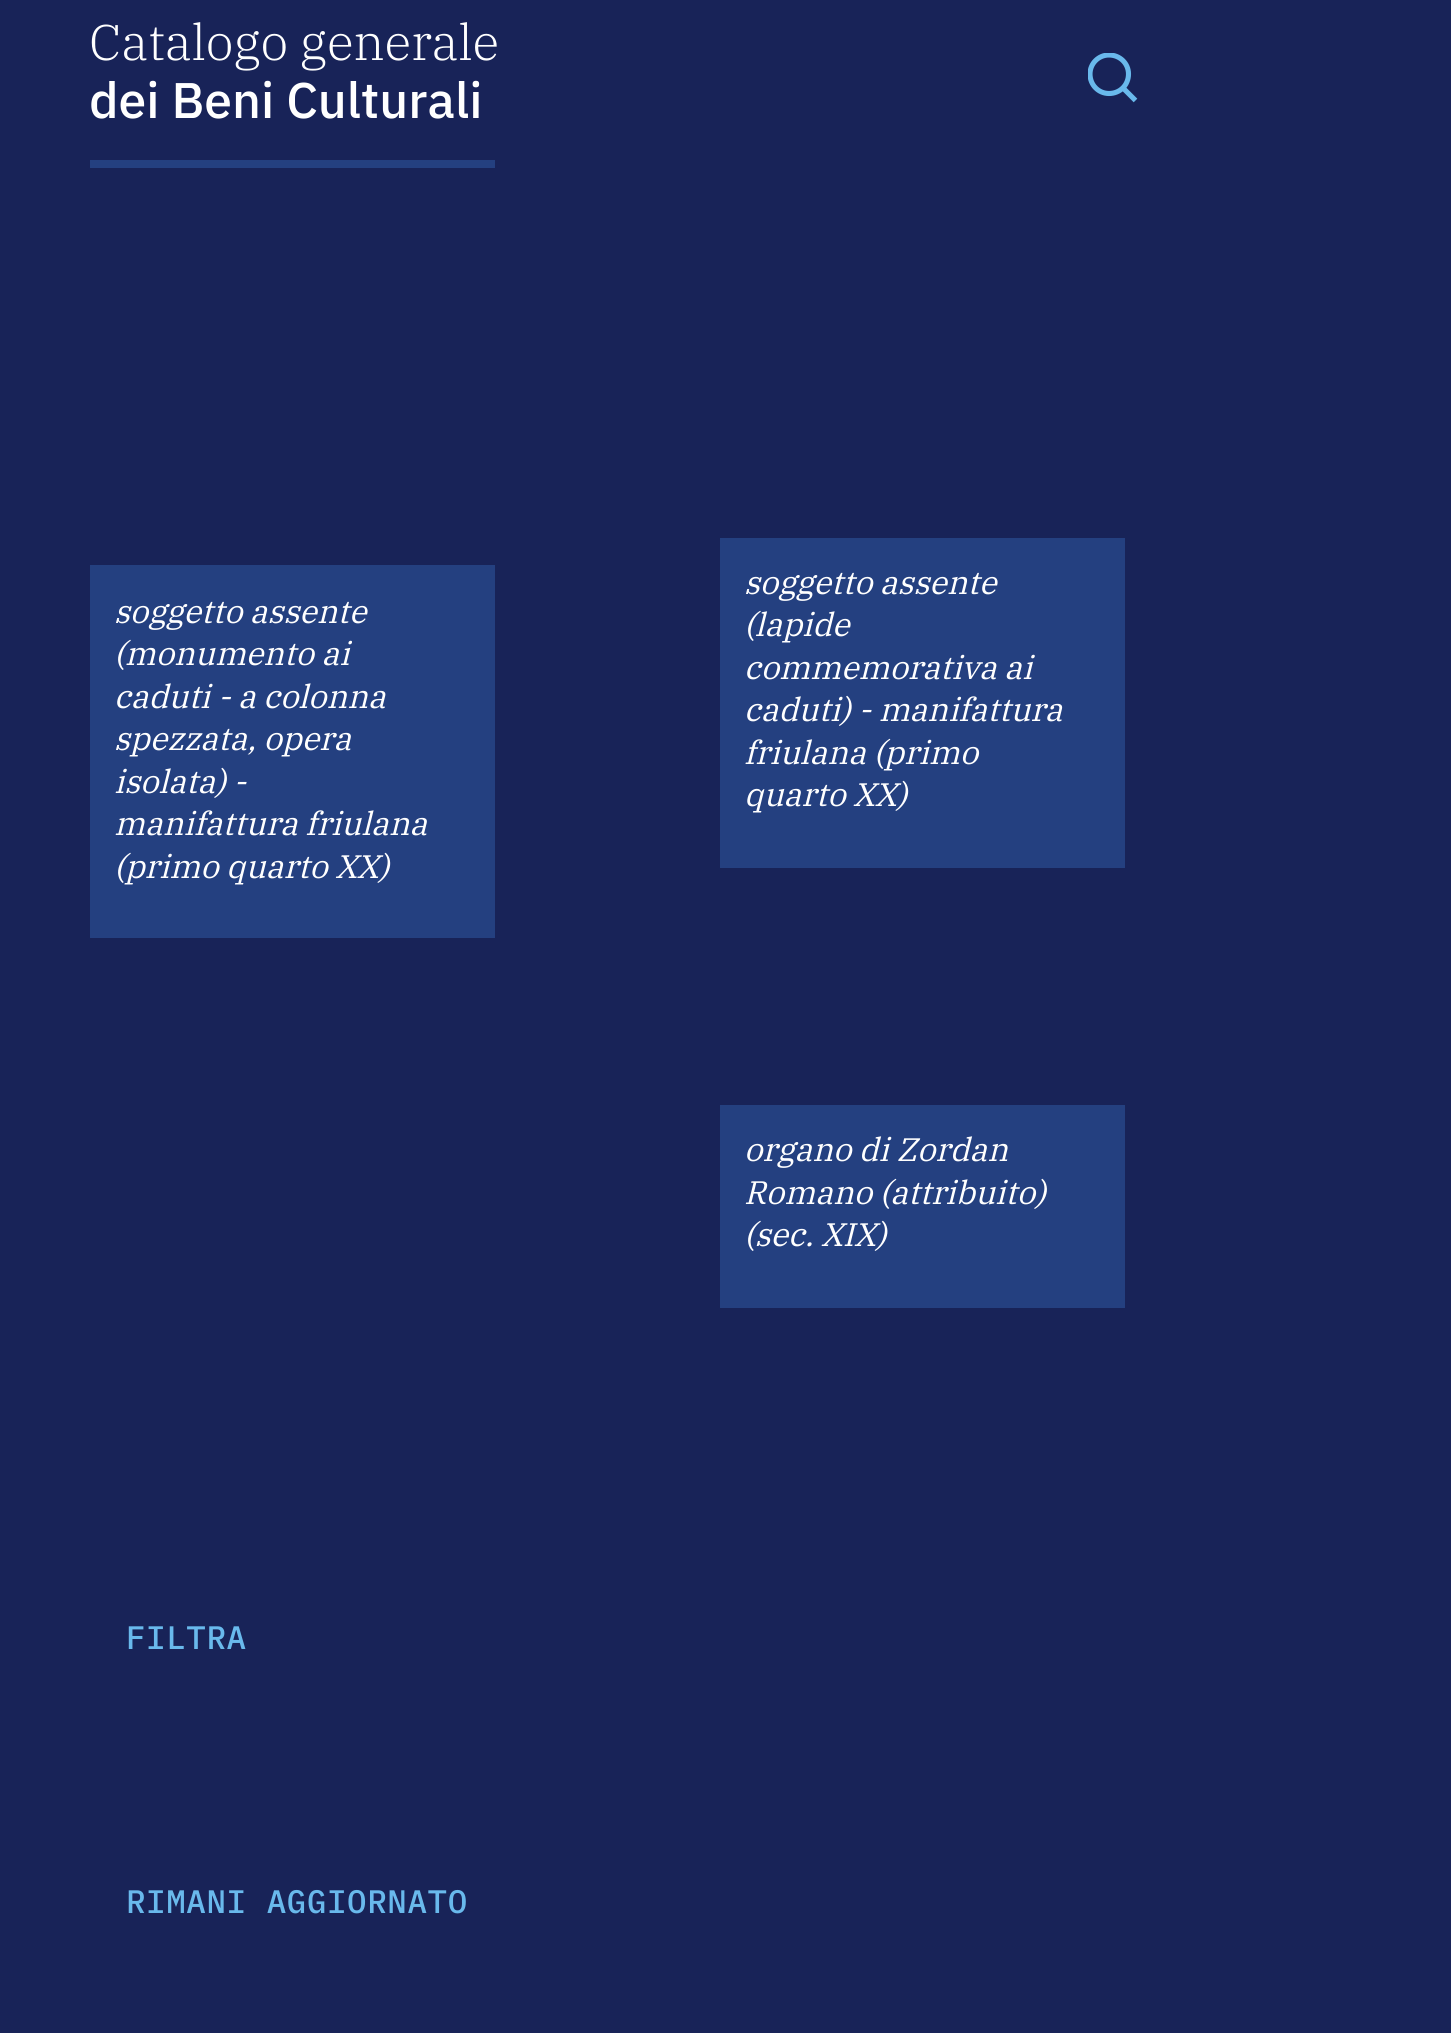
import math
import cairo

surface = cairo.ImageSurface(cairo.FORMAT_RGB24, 1451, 2033)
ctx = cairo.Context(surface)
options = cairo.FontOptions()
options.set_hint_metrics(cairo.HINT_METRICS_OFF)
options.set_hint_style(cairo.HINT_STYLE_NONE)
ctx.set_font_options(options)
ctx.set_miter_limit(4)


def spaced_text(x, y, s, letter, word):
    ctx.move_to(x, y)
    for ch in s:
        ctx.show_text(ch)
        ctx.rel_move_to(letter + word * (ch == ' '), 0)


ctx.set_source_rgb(0.094, 0.137, 0.345)
ctx.paint()
ctx.select_font_face("IBM Plex Serif Light")
ctx.set_font_size(50)
ctx.set_source_rgb(1, 1, 1)
ctx.move_to(89, 60)
ctx.show_text("Catalogo generale")
ctx.select_font_face("IBM Plex Sans Medium")
ctx.move_to(89, 118)
ctx.show_text("dei Beni Culturali")
ctx.save()
ctx.rectangle(1088, 53, 50, 50)
ctx.clip()
ctx.new_path()
ctx.move_to(1109, 93.5)
ctx.curve_to(1120, 93.5, 1128.5, 85, 1128.5, 74)
ctx.curve_to(1128.5, 63.5, 1120, 55, 1109, 55)
ctx.curve_to(1098.5, 55, 1090, 63.5, 1090, 74)
ctx.curve_to(1090, 85, 1098.5, 93.5, 1109, 93.5)
ctx.close_path()
ctx.set_source_rgb(0.412, 0.725, 0.925)
ctx.set_line_width(5.1)
ctx.stroke()
ctx.restore()
ctx.new_path()
ctx.move_to(1123.5, 88.5)
ctx.line_to(1135.5, 100.5)
ctx.set_source_rgb(0.412, 0.725, 0.925)
ctx.set_line_width(5.1)
ctx.stroke()
ctx.set_source_rgb(0.141, 0.251, 0.502)
ctx.rectangle(90, 160, 405, 8)
ctx.fill()
ctx.rectangle(90, 565, 405, 373)
ctx.fill()
ctx.select_font_face("IBM Plex Serif", cairo.FONT_SLANT_ITALIC)
ctx.set_font_size(32.5)
ctx.set_source_rgb(1, 1, 1)
ctx.move_to(114, 623)
ctx.show_text("soggetto assente")
ctx.move_to(114, 665)
ctx.show_text("(monumento ai")
ctx.move_to(114, 708)
ctx.show_text("caduti - a colonna")
ctx.move_to(114, 750)
ctx.show_text("spezzata, opera")
ctx.move_to(114, 793)
ctx.show_text("isolata) -")
ctx.move_to(114, 835)
ctx.show_text("manifattura friulana")
ctx.move_to(114, 878)
ctx.show_text("(primo quarto XX)")
ctx.set_source_rgb(0.141, 0.251, 0.502)
ctx.rectangle(720, 538, 405, 330)
ctx.fill()
ctx.set_source_rgb(1, 1, 1)
ctx.move_to(744, 594)
ctx.show_text("soggetto assente")
ctx.move_to(744, 636)
ctx.show_text("(lapide")
ctx.move_to(744, 679)
ctx.show_text("commemorativa ai")
ctx.move_to(744, 721)
ctx.show_text("caduti) - manifattura")
ctx.move_to(744, 764)
ctx.show_text("friulana (primo")
ctx.move_to(744, 806)
ctx.show_text("quarto XX)")
ctx.set_source_rgb(0.141, 0.251, 0.502)
ctx.rectangle(720, 1105, 405, 203)
ctx.fill()
ctx.set_source_rgb(1, 1, 1)
ctx.move_to(744, 1161)
ctx.show_text("organo di Zordan")
ctx.move_to(744, 1204)
ctx.show_text("Romano (attribuito)")
ctx.move_to(744, 1246)
ctx.show_text("(sec. XIX)")
ctx.select_font_face("IBM Plex Mono Medium")
ctx.set_source_rgb(0.412, 0.725, 0.925)
spaced_text(126, 1649, "FILTRA", 0.6, 0)
spaced_text(126, 1913, "RIMANI AGGIORNATO", 0.6, 0)
surface.write_to_png("page.png")
